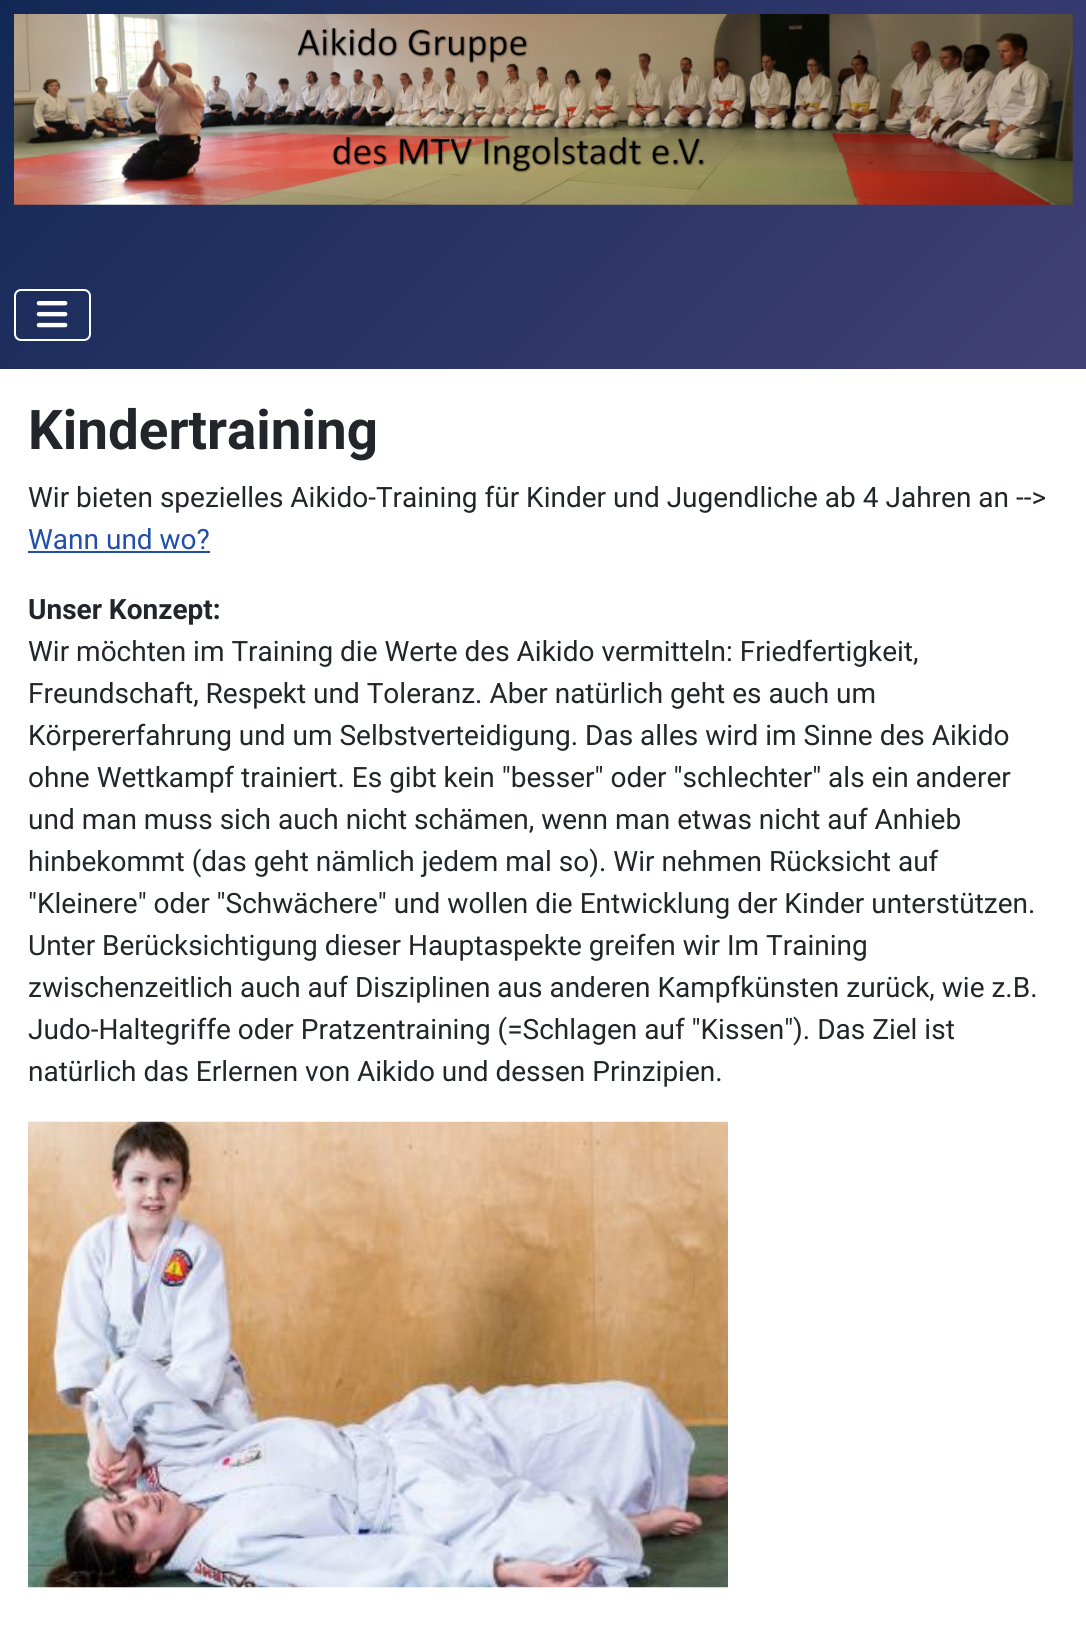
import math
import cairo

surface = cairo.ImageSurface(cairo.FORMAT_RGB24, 1086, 1626)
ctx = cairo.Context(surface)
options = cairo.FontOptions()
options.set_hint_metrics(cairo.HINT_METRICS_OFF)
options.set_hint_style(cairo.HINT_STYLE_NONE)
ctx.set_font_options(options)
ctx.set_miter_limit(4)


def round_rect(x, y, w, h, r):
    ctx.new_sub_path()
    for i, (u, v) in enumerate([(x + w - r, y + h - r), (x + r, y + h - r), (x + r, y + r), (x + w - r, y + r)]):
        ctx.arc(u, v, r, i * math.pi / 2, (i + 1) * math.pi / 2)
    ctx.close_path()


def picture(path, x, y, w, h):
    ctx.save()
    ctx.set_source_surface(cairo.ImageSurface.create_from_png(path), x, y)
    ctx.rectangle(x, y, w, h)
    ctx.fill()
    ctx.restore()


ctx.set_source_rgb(1, 1, 1)
ctx.paint()
gradient = cairo.LinearGradient(179, -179, 907, 549)
gradient.add_color_stop_rgba(0, 0.067, 0.157, 0.333, 1)
gradient.add_color_stop_rgba(1, 0.259, 0.251, 0.467, 1)
ctx.set_source(gradient)
ctx.rectangle(0, 0, 1086, 369)
ctx.fill()
picture("img1.png", 14, 14, 1059, 191)
round_rect(15, 290, 75, 50, 6)
ctx.set_source_rgb(1, 1, 1)
ctx.stroke()
picture("img2.png", 36, 301, 32, 27)
ctx.select_font_face("Roboto", cairo.FONT_SLANT_NORMAL, cairo.FONT_WEIGHT_BOLD)
ctx.set_font_size(54.75)
ctx.set_source_rgb(0.133, 0.149, 0.165)
ctx.move_to(28, 449)
ctx.show_text("Kindertraining")
ctx.select_font_face("Roboto")
ctx.set_font_size(28)
ctx.move_to(28, 507)
ctx.show_text("Wir bieten spezielles Aikido-Training für Kinder und Jugendliche ab 4 Jahren an -->")
ctx.set_source_rgb(0.133, 0.31, 0.667)
ctx.move_to(28, 549)
ctx.show_text("Wann und wo?")
ctx.rectangle(28, 551, 182, 2)
ctx.fill()
ctx.select_font_face("Roboto", cairo.FONT_SLANT_NORMAL, cairo.FONT_WEIGHT_BOLD)
ctx.set_source_rgb(0.133, 0.149, 0.165)
ctx.move_to(28, 619)
ctx.show_text("Unser Konzept:")
ctx.select_font_face("Roboto")
ctx.move_to(28, 661)
ctx.show_text("Wir möchten im Training die Werte des Aikido vermitteln: Friedfertigkeit,")
ctx.move_to(28, 703)
ctx.show_text("Freundschaft, Respekt und Toleranz. Aber natürlich geht es auch um")
ctx.move_to(28, 745)
ctx.show_text("Körpererfahrung und um Selbstverteidigung. Das alles wird im Sinne des Aikido")
ctx.move_to(28, 787)
ctx.show_text("ohne Wettkampf trainiert. Es gibt kein \"besser\" oder \"schlechter\" als ein anderer")
ctx.move_to(28, 829)
ctx.show_text("und man muss sich auch nicht schämen, wenn man etwas nicht auf Anhieb")
ctx.move_to(28, 871)
ctx.show_text("hinbekommt (das geht nämlich jedem mal so). Wir nehmen Rücksicht auf")
ctx.move_to(28, 913)
ctx.show_text("\"Kleinere\" oder \"Schwächere\" und wollen die Entwicklung der Kinder unterstützen.")
ctx.move_to(28, 955)
ctx.show_text("Unter Berücksichtigung dieser Hauptaspekte greifen wir Im Training")
ctx.move_to(28, 997)
ctx.show_text("zwischenzeitlich auch auf Disziplinen aus anderen Kampfkünsten zurück, wie z.B.")
ctx.move_to(28, 1039)
ctx.show_text("Judo-Haltegriffe oder Pratzentraining (=Schlagen auf \"Kissen\"). Das Ziel ist")
ctx.move_to(28, 1081)
ctx.show_text("natürlich das Erlernen von Aikido und dessen Prinzipien.")
picture("img3.png", 28, 1121, 700, 467)
surface.write_to_png("page.png")
